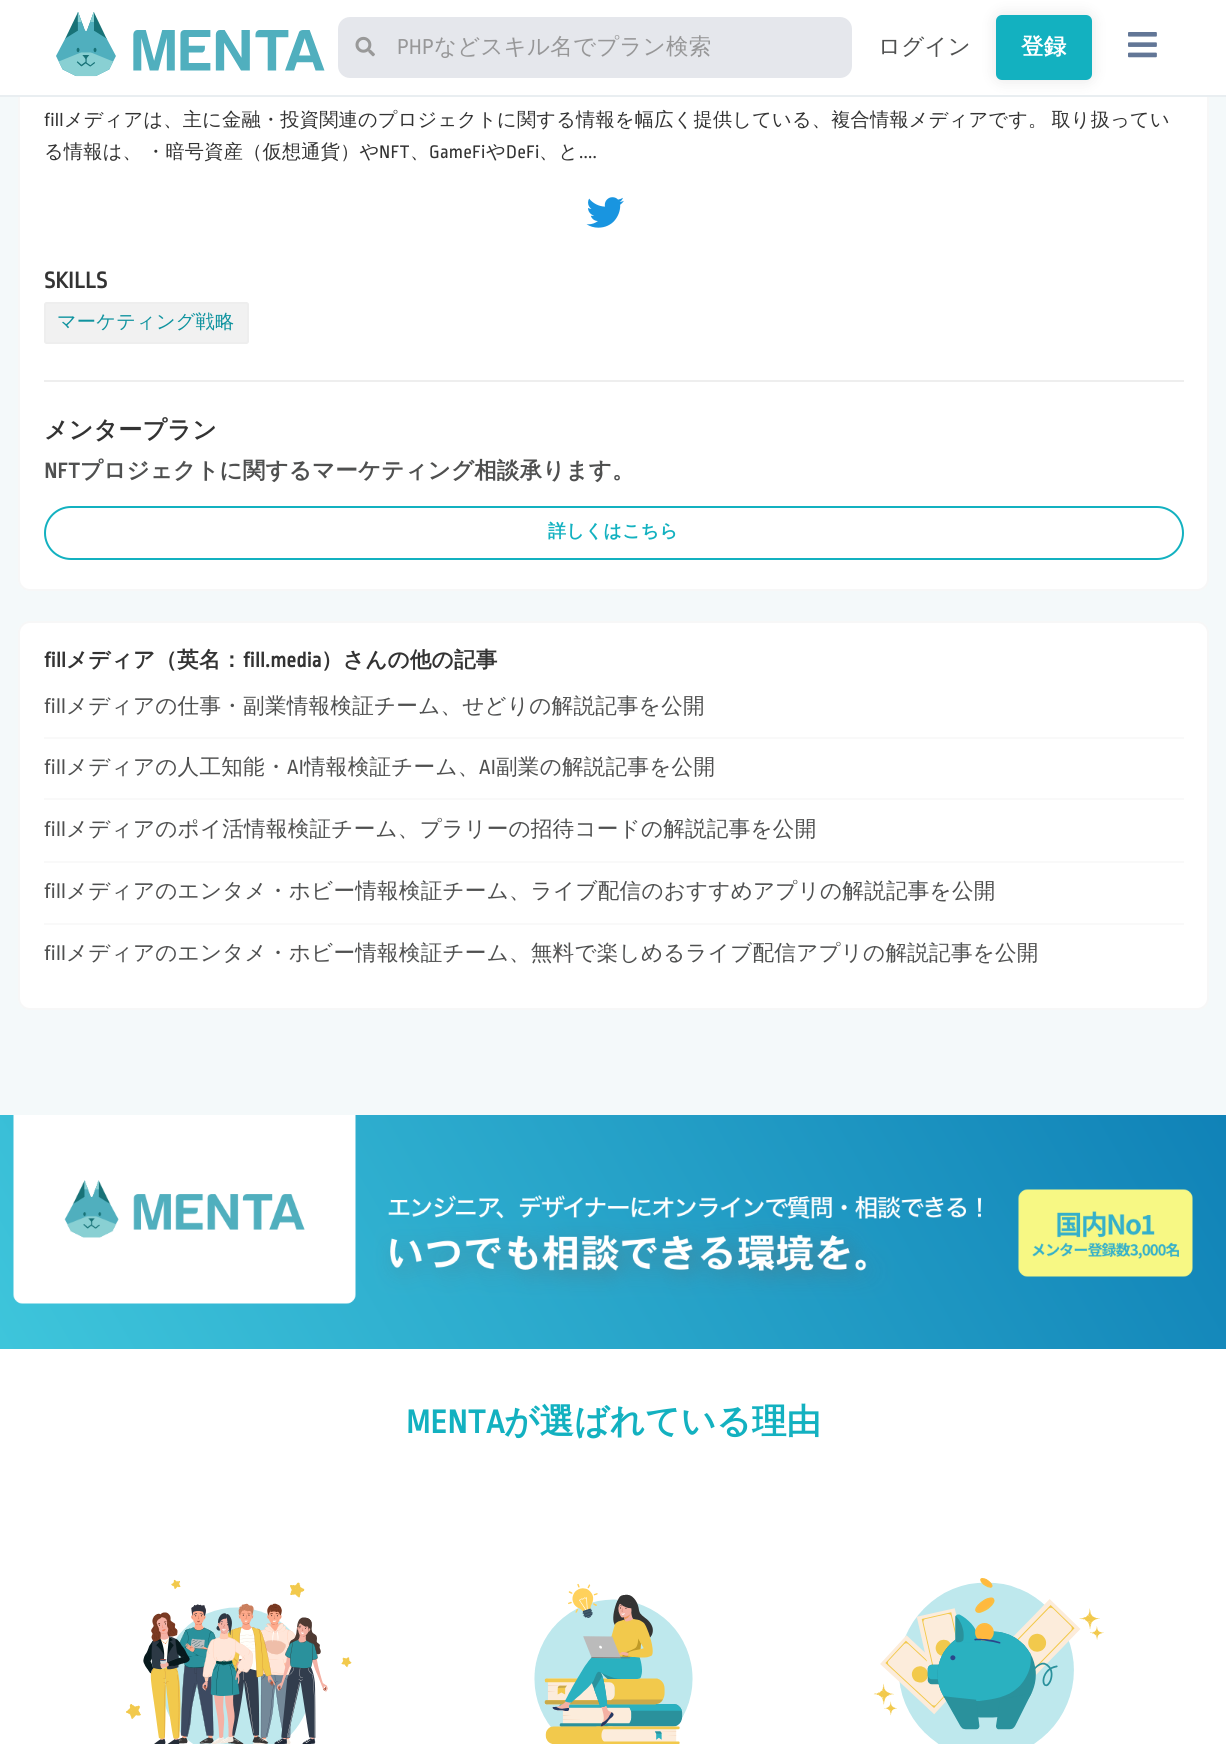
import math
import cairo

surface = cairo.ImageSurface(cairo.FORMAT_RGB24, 1226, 1744)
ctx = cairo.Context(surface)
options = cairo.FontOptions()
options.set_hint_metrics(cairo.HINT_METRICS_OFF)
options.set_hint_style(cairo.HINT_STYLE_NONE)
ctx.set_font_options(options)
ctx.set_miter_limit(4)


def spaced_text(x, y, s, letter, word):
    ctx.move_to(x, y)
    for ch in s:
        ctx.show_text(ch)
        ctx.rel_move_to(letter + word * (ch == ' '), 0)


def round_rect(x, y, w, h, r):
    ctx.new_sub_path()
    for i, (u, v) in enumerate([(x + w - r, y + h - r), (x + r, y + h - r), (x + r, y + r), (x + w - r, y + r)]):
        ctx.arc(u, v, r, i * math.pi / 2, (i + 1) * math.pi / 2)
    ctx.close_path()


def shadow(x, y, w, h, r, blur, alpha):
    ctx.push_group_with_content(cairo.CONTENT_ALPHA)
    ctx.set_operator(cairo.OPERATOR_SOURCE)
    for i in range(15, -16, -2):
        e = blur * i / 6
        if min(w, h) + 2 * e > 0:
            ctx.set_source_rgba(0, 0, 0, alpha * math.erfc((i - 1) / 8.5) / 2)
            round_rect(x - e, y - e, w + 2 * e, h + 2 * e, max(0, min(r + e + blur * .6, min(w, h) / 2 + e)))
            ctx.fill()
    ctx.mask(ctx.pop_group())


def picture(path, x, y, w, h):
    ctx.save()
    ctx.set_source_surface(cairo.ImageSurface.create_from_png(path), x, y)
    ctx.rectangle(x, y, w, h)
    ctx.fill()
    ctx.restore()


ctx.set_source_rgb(0.957, 0.973, 0.98)
ctx.paint()
ctx.set_source_rgb(1, 1, 1)
round_rect(19, -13, 1189, 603, 11)
ctx.fill_preserve()
ctx.set_source_rgb(0.965, 0.965, 0.965)
ctx.stroke()
ctx.set_source_rgb(1, 1, 1)
ctx.rectangle(0, 0, 1226, 95)
ctx.fill()
ctx.set_source_rgb(0.914, 0.933, 0.945)
ctx.rectangle(0, 95, 1226, 2)
ctx.fill()
picture("img1.png", 56, 12, 269, 65)
ctx.set_source_rgb(0.898, 0.906, 0.922)
round_rect(338, 17, 514, 61, 12)
ctx.fill()
picture("img2.png", 355, 36, 20, 21)
ctx.select_font_face("Ropa Sans")
ctx.set_font_size(22.5)
ctx.set_source_rgb(0.592, 0.592, 0.596)
spaced_text(397, 54, "PHP", 0.22, 0)
ctx.select_font_face("WenQuanYi Zen Hei Medium")
spaced_text(434, 54, "などスキル名でプラン検索", 0.22, 0)
ctx.set_source_rgb(0.31, 0.314, 0.314)
spaced_text(878, 54, "ログイン", 0.22, 0)
ctx.set_source_rgb(0, 0, 0)
shadow(996, 15, 96, 65, 6, 7.5, 0.1)
ctx.set_source_rgb(0.075, 0.694, 0.753)
round_rect(997, 16, 94, 63, 5)
ctx.fill_preserve()
ctx.stroke()
ctx.select_font_face("WenQuanYi Zen Hei", cairo.FONT_SLANT_NORMAL, cairo.FONT_WEIGHT_BOLD)
ctx.set_source_rgb(1, 1, 1)
spaced_text(1021, 54, "登録", 0.22, 0)
picture("img3.png", 1128, 32, 29, 26)
ctx.select_font_face("Ropa Sans")
ctx.set_font_size(19.2)
ctx.set_source_rgb(0.2, 0.2, 0.2)
spaced_text(44, 126, "fill", 0.22, 0)
ctx.select_font_face("WenQuanYi Zen Hei Medium")
spaced_text(64, 126, "メディアは、主に金融・投資関連のプロジェクトに関する情報を幅広く提供している、複合情報メディアです。 取り扱ってい", 0.22, -2)
spaced_text(44, 158, "る情報は、 ・暗号資産（仮想通貨）や", 0.22, -2)
ctx.select_font_face("Ropa Sans")
spaced_text(379, 158, "NFT", 0.22, 0)
ctx.select_font_face("WenQuanYi Zen Hei Medium")
spaced_text(410, 158, "、", 0.22, 0)
ctx.select_font_face("Ropa Sans")
spaced_text(429, 158, "GameFi", 0.22, 0)
ctx.select_font_face("WenQuanYi Zen Hei Medium")
spaced_text(486, 158, "や", 0.22, 0)
ctx.select_font_face("Ropa Sans")
spaced_text(506, 158, "DeFi", 0.22, 0)
ctx.select_font_face("WenQuanYi Zen Hei Medium")
spaced_text(539, 158, "、と", 0.22, 0)
ctx.select_font_face("Ropa Sans")
spaced_text(579, 158, "....", 0.22, 0)
picture("img4.png", 586, 197, 38, 31)
ctx.select_font_face("Ropa Sans", cairo.FONT_SLANT_NORMAL, cairo.FONT_WEIGHT_BOLD)
ctx.set_font_size(24)
spaced_text(44, 288, "SKILLS", 0.22, 0)
ctx.set_source_rgb(0.945, 0.945, 0.945)
round_rect(44, 302, 205, 42, 3)
ctx.fill()
round_rect(45, 303, 203, 40, 2)
ctx.set_source_rgba(0.933, 0.933, 0.933, 0.93)
ctx.stroke()
ctx.select_font_face("WenQuanYi Zen Hei Medium")
ctx.set_font_size(19.2)
ctx.set_source_rgb(0.059, 0.576, 0.624)
spaced_text(57, 328, "マーケティング戦略", 0.22, 0)
ctx.set_source_rgb(0.933, 0.933, 0.933)
ctx.rectangle(44, 380, 1140, 2)
ctx.fill()
ctx.select_font_face("WenQuanYi Zen Hei", cairo.FONT_SLANT_NORMAL, cairo.FONT_WEIGHT_BOLD)
ctx.set_font_size(24)
ctx.set_source_rgb(0.2, 0.2, 0.2)
spaced_text(44, 438, "メンタープラン", 0.22, 0)
ctx.select_font_face("Ropa Sans", cairo.FONT_SLANT_NORMAL, cairo.FONT_WEIGHT_BOLD)
ctx.set_font_size(22.5)
ctx.set_source_rgb(0.31, 0.314, 0.314)
spaced_text(44, 478, "NFT", 0.22, 0)
ctx.select_font_face("WenQuanYi Zen Hei", cairo.FONT_SLANT_NORMAL, cairo.FONT_WEIGHT_BOLD)
spaced_text(80, 478, "プロジェクトに関するマーケティング相談承ります。", 0.22, 0)
round_rect(45, 507, 1138, 52, 26)
ctx.set_source_rgb(0.075, 0.694, 0.753)
ctx.stroke()
ctx.set_font_size(18)
spaced_text(548, 537, "詳しくはこちら", 0.22, 0)
ctx.set_source_rgb(1, 1, 1)
round_rect(19, 622, 1189, 387, 11)
ctx.fill_preserve()
ctx.set_source_rgb(0.965, 0.965, 0.965)
ctx.stroke()
ctx.select_font_face("Ropa Sans", cairo.FONT_SLANT_NORMAL, cairo.FONT_WEIGHT_BOLD)
ctx.set_font_size(21.6)
ctx.set_source_rgb(0.2, 0.2, 0.2)
spaced_text(44, 667, "fill", 0.22, 0)
ctx.select_font_face("WenQuanYi Zen Hei", cairo.FONT_SLANT_NORMAL, cairo.FONT_WEIGHT_BOLD)
spaced_text(66, 667, "メディア（英名：", 0.22, 0)
ctx.select_font_face("Ropa Sans", cairo.FONT_SLANT_NORMAL, cairo.FONT_WEIGHT_BOLD)
spaced_text(243, 667, "fill.media", 0.22, 0)
ctx.select_font_face("WenQuanYi Zen Hei", cairo.FONT_SLANT_NORMAL, cairo.FONT_WEIGHT_BOLD)
spaced_text(321, 667, "）さんの他の記事", 0.22, 0)
ctx.set_source_rgb(0.973, 0.973, 0.973)
ctx.rectangle(44, 737, 1140, 2)
ctx.fill()
ctx.select_font_face("Ropa Sans")
ctx.set_source_rgb(0.31, 0.314, 0.314)
spaced_text(44, 713, "fill", 0.22, 0)
ctx.select_font_face("WenQuanYi Zen Hei Medium")
spaced_text(66, 713, "メディアの仕事・副業情報検証チーム、せどりの解説記事を公開", 0.22, 0)
ctx.set_source_rgb(0.973, 0.973, 0.973)
ctx.rectangle(44, 798, 1140, 2)
ctx.fill()
ctx.select_font_face("Ropa Sans")
ctx.set_source_rgb(0.31, 0.314, 0.314)
spaced_text(44, 774, "fill", 0.22, 0)
ctx.select_font_face("WenQuanYi Zen Hei Medium")
spaced_text(66, 774, "メディアの人工知能・", 0.22, 0)
ctx.select_font_face("Ropa Sans")
spaced_text(287, 774, "AI", 0.22, 0)
ctx.select_font_face("WenQuanYi Zen Hei Medium")
spaced_text(304, 774, "情報検証チーム、", 0.22, 0)
ctx.select_font_face("Ropa Sans")
spaced_text(479, 774, "AI", 0.22, 0)
ctx.select_font_face("WenQuanYi Zen Hei Medium")
spaced_text(496, 774, "副業の解説記事を公開", 0.22, 0)
ctx.set_source_rgb(0.973, 0.973, 0.973)
ctx.rectangle(44, 861, 1140, 2)
ctx.fill()
ctx.select_font_face("Ropa Sans")
ctx.set_source_rgb(0.31, 0.314, 0.314)
spaced_text(44, 836, "fill", 0.22, 0)
ctx.select_font_face("WenQuanYi Zen Hei Medium")
spaced_text(66, 836, "メディアのポイ活情報検証チーム、プラリーの招待コードの解説記事を公開", 0.22, 0)
ctx.set_source_rgb(0.973, 0.973, 0.973)
ctx.rectangle(44, 923, 1140, 2)
ctx.fill()
ctx.select_font_face("Ropa Sans")
ctx.set_source_rgb(0.31, 0.314, 0.314)
spaced_text(44, 898, "fill", 0.22, 0)
ctx.select_font_face("WenQuanYi Zen Hei Medium")
spaced_text(66, 898, "メディアのエンタメ・ホビー情報検証チーム、ライブ配信のおすすめアプリの解説記事を公開", 0.22, 0)
ctx.select_font_face("Ropa Sans")
spaced_text(44, 960, "fill", 0.22, 0)
ctx.select_font_face("WenQuanYi Zen Hei Medium")
spaced_text(66, 960, "メディアのエンタメ・ホビー情報検証チーム、無料で楽しめるライブ配信アプリの解説記事を公開", 0.22, 0)
ctx.set_source_rgb(1, 1, 1)
ctx.rectangle(0, 1349, 1226, 395)
ctx.fill()
gradient = cairo.LinearGradient(1124, 937, 103, 1526)
gradient.add_color_stop_rgba(0, 0.063, 0.51, 0.718, 1)
gradient.add_color_stop_rgba(1, 0.243, 0.773, 0.859, 1)
ctx.set_source(gradient)
ctx.rectangle(0, 1115, 1226, 234)
ctx.fill()
picture("img5.png", 13, 1115, 1180, 189)
ctx.select_font_face("Ropa Sans", cairo.FONT_SLANT_NORMAL, cairo.FONT_WEIGHT_BOLD)
ctx.set_font_size(34.5)
ctx.set_source_rgb(0.075, 0.694, 0.753)
spaced_text(406, 1433, "MENTA", 0.22, 0)
ctx.select_font_face("WenQuanYi Zen Hei", cairo.FONT_SLANT_NORMAL, cairo.FONT_WEIGHT_BOLD)
spaced_text(504, 1433, "が選ばれている理由", 0.22, 0)
picture("img6.png", 126, 1579, 226, 165)
picture("img7.png", 534, 1583, 159, 161)
picture("img8.png", 873, 1578, 231, 166)
surface.write_to_png("page.png")
